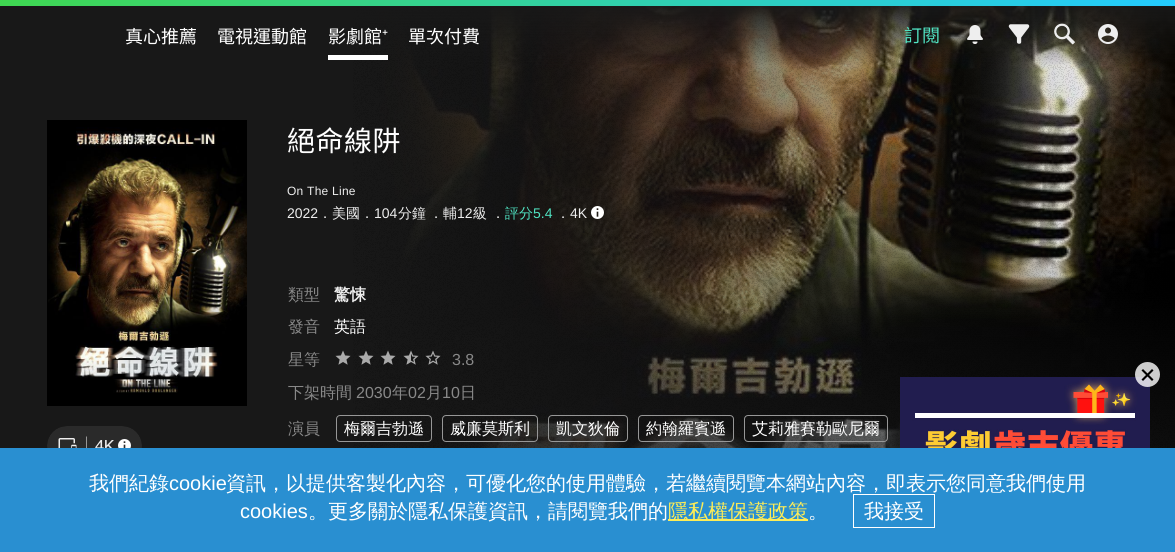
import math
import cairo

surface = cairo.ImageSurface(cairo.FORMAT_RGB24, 1175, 552)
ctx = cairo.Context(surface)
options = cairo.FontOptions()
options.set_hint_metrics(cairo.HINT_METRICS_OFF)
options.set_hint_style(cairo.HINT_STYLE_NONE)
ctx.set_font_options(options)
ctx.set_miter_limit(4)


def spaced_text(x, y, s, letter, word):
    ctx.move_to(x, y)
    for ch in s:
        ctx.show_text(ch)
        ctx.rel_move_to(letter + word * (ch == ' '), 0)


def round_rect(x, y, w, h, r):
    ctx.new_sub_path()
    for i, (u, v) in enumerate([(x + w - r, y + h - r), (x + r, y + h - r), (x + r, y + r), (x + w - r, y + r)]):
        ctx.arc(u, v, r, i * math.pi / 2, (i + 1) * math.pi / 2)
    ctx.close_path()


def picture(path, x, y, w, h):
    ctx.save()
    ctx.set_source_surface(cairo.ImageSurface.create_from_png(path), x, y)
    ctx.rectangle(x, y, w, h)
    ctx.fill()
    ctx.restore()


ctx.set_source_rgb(0.094, 0.094, 0.094)
ctx.paint()
picture("img6.png", 358, 6, 817, 442)
picture("img5.png", 353, 6, 822, 442)
gradient = cairo.LinearGradient(588, 0, 588, 66)
gradient.add_color_stop_rgba(0, 0.094, 0.094, 0.094, 1)
gradient.add_color_stop_rgba(1, 0.094, 0.094, 0.094, 0)
ctx.set_source(gradient)
ctx.rectangle(353, 6, 822, 59)
ctx.fill()
gradient = cairo.LinearGradient(289, -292, 886, 298)
gradient.add_color_stop_rgba(0, 0.247, 0.843, 0.314, 1)
gradient.add_color_stop_rgba(1, 0.141, 0.796, 1, 1)
ctx.set_source(gradient)
ctx.rectangle(0, 0, 1175, 6)
ctx.fill()
ctx.select_font_face("Noto Sans TC Thin")
ctx.set_font_size(18)
ctx.set_source_rgb(1, 1, 1)
ctx.move_to(125, 43)
ctx.show_text("真心推薦")
ctx.move_to(217, 43)
ctx.show_text("電視運動館")
ctx.rectangle(328, 55, 60, 5)
ctx.fill()
ctx.move_to(328, 43)
ctx.show_text("影劇館")
ctx.select_font_face("Noto Sans")
ctx.move_to(382, 43)
ctx.show_text("⁺")
ctx.select_font_face("Noto Sans TC Thin")
ctx.move_to(408, 43)
ctx.show_text("單次付費")
ctx.set_source_rgb(0.314, 0.89, 0.761)
ctx.move_to(904, 42)
ctx.show_text("訂閱")
picture("img1.png", 967, 25, 16, 19)
picture("img2.png", 1008, 24, 22, 20)
picture("img3.png", 1054, 23, 21, 22)
picture("img4.png", 1098, 24, 20, 20)
ctx.set_source_rgb(0, 0, 0)
ctx.rectangle(47, 120, 200, 286)
ctx.fill()
picture("img7.png", 48, 127, 199, 266)
picture("img8.png", 47, 426, 95, 22)
ctx.set_font_size(28)
ctx.set_source_rgb(1, 1, 1)
spaced_text(287, 151, "絕命線阱", 0.5, 0)
ctx.select_font_face("Liberation Sans")
ctx.set_font_size(12)
ctx.set_source_rgb(0.933, 0.933, 0.933)
spaced_text(287, 195, "On The Line", 0.25, 0)
ctx.set_font_size(14)
ctx.move_to(287, 218)
ctx.show_text("2022")
ctx.select_font_face("WenQuanYi Zen Hei Medium")
ctx.move_to(318, 218)
ctx.show_text("．美國．")
ctx.select_font_face("Liberation Sans")
ctx.move_to(374, 218)
ctx.show_text("104")
ctx.select_font_face("WenQuanYi Zen Hei Medium")
ctx.move_to(398, 218)
ctx.show_text("分鐘")
ctx.move_to(429, 218)
ctx.show_text("．輔")
ctx.select_font_face("Liberation Sans")
ctx.move_to(457, 218)
ctx.show_text("12")
ctx.select_font_face("WenQuanYi Zen Hei Medium")
ctx.move_to(473, 218)
ctx.show_text("級")
ctx.move_to(491, 218)
ctx.show_text("．")
ctx.set_source_rgb(0.314, 0.89, 0.761)
ctx.move_to(505, 218)
ctx.show_text("評分")
ctx.select_font_face("Liberation Sans")
ctx.move_to(533, 218)
ctx.show_text("5.4")
ctx.select_font_face("WenQuanYi Zen Hei Medium")
ctx.set_source_rgb(0.933, 0.933, 0.933)
ctx.move_to(556, 218)
ctx.show_text("．")
ctx.select_font_face("Liberation Sans")
ctx.move_to(570, 218)
ctx.show_text("4K")
picture("img9.png", 591, 206, 13, 13)
ctx.select_font_face("WenQuanYi Zen Hei Medium")
ctx.set_font_size(16)
ctx.set_source_rgb(0.533, 0.533, 0.533)
ctx.move_to(288, 300)
ctx.show_text("類型")
ctx.select_font_face("WenQuanYi Zen Hei", cairo.FONT_SLANT_NORMAL, cairo.FONT_WEIGHT_BOLD)
ctx.set_source_rgb(0.933, 0.933, 0.933)
ctx.move_to(334, 300)
ctx.show_text("驚悚")
ctx.select_font_face("WenQuanYi Zen Hei Medium")
ctx.set_source_rgb(0.533, 0.533, 0.533)
ctx.move_to(288, 332)
ctx.show_text("發音")
ctx.set_source_rgb(1, 1, 1)
ctx.move_to(334, 332)
ctx.show_text("英語")
ctx.set_source_rgb(0.533, 0.533, 0.533)
ctx.move_to(288, 365)
ctx.show_text("星等")
picture("img10.png", 335, 350, 16, 15)
picture("img11.png", 358, 350, 16, 15)
picture("img12.png", 380, 350, 16, 15)
picture("img13.png", 403, 350, 16, 15)
picture("img14.png", 425, 350, 16, 15)
ctx.select_font_face("Liberation Sans")
ctx.move_to(452, 365)
ctx.show_text("3.8")
ctx.select_font_face("WenQuanYi Zen Hei Medium")
ctx.move_to(288, 398)
ctx.show_text("下架時間")
ctx.select_font_face("Liberation Sans")
ctx.move_to(356, 398)
ctx.show_text("2030")
ctx.select_font_face("WenQuanYi Zen Hei Medium")
ctx.move_to(392, 398)
ctx.show_text("年")
ctx.select_font_face("Liberation Sans")
ctx.move_to(408, 398)
ctx.show_text("02")
ctx.select_font_face("WenQuanYi Zen Hei Medium")
ctx.move_to(426, 398)
ctx.show_text("月")
ctx.select_font_face("Liberation Sans")
ctx.move_to(442, 398)
ctx.show_text("10")
ctx.select_font_face("WenQuanYi Zen Hei Medium")
ctx.move_to(460, 398)
ctx.show_text("日")
ctx.move_to(288, 434)
ctx.show_text("演員")
round_rect(336.5, 415.5, 95, 26, 3.5)
ctx.set_source_rgb(0.592, 0.592, 0.592)
ctx.set_line_width(1)
ctx.stroke()
ctx.set_source_rgb(1, 1, 1)
ctx.move_to(344, 434)
ctx.show_text("梅爾吉勃遜")
round_rect(442.5, 415.5, 95, 26, 3.5)
ctx.set_source_rgb(0.592, 0.592, 0.592)
ctx.stroke()
ctx.set_source_rgb(1, 1, 1)
ctx.move_to(450, 434)
ctx.show_text("威廉莫斯利")
round_rect(548.5, 415.5, 79, 26, 3.5)
ctx.set_source_rgb(0.592, 0.592, 0.592)
ctx.stroke()
ctx.set_source_rgb(1, 1, 1)
ctx.move_to(556, 434)
ctx.show_text("凱文狄倫")
round_rect(638.5, 415.5, 95, 26, 3.5)
ctx.set_source_rgb(0.592, 0.592, 0.592)
ctx.stroke()
ctx.set_source_rgb(1, 1, 1)
ctx.move_to(646, 434)
ctx.show_text("約翰羅賓遜")
round_rect(744.5, 415.5, 143, 26, 3.5)
ctx.set_source_rgb(0.592, 0.592, 0.592)
ctx.stroke()
ctx.set_source_rgb(1, 1, 1)
ctx.move_to(752, 434)
ctx.show_text("艾莉雅賽勒歐尼爾")
picture("img15.png", 900, 377, 250, 71)
ctx.set_source_rgba(1, 1, 1, 0.8)
ctx.arc(1147.5, 374.5, 12.5, 0, 2 * math.pi)
ctx.fill()
ctx.set_source_rgb(0, 0, 0)
ctx.new_path()
ctx.move_to(1141.5, 379.5)
ctx.line_to(1152, 369)
ctx.line_to(1153.5, 370.5)
ctx.line_to(1143, 381)
ctx.close_path()
ctx.fill()
ctx.new_path()
ctx.move_to(1143, 369)
ctx.line_to(1153.5, 379.5)
ctx.line_to(1152, 381)
ctx.line_to(1141.5, 370.5)
ctx.close_path()
ctx.fill()
ctx.set_source_rgb(0.161, 0.561, 0.82)
ctx.rectangle(0, 448, 1175, 104)
ctx.fill()
ctx.set_font_size(20)
ctx.set_source_rgb(1, 1, 1)
ctx.move_to(89, 490)
ctx.show_text("我們紀錄")
ctx.select_font_face("Liberation Sans")
ctx.move_to(169, 490)
ctx.show_text("cookie")
ctx.select_font_face("WenQuanYi Zen Hei Medium")
ctx.move_to(226, 490)
ctx.show_text("資訊，以提供客製化內容，可優化您的使用體驗，若繼續閱覽本網站內容，即表示您同意我們使用")
ctx.select_font_face("Liberation Sans")
ctx.move_to(240, 518)
ctx.show_text("cookies")
ctx.select_font_face("WenQuanYi Zen Hei Medium")
ctx.move_to(308, 518)
ctx.show_text("。更多關於隱私保護資訊，請閱覽我們的")
ctx.set_source_rgb(0.992, 0.925, 0.341)
ctx.rectangle(668, 519, 140, 2)
ctx.fill()
ctx.move_to(668, 518)
ctx.show_text("隱私權保護政策")
ctx.set_source_rgb(1, 1, 1)
ctx.move_to(808, 518)
ctx.show_text("。")
ctx.rectangle(853.5, 494.5, 81, 33)
ctx.stroke()
ctx.move_to(864, 518)
ctx.show_text("我接受")
surface.write_to_png("page.png")
